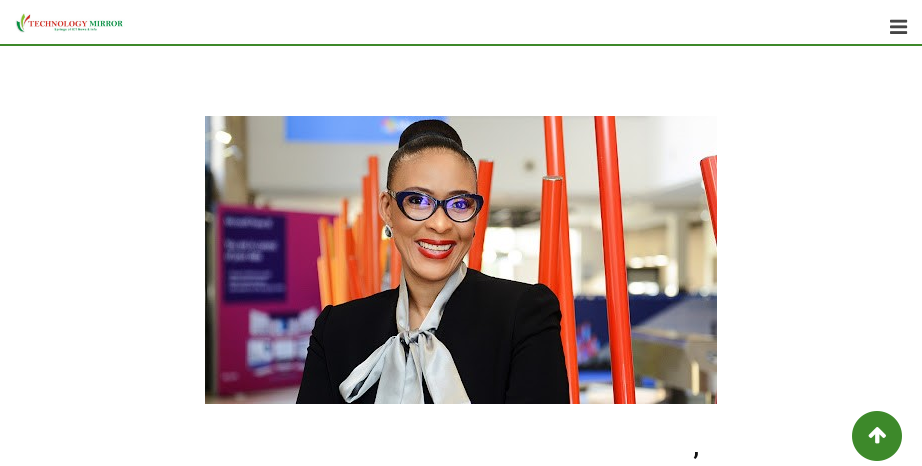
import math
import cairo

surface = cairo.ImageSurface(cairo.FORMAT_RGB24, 922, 466)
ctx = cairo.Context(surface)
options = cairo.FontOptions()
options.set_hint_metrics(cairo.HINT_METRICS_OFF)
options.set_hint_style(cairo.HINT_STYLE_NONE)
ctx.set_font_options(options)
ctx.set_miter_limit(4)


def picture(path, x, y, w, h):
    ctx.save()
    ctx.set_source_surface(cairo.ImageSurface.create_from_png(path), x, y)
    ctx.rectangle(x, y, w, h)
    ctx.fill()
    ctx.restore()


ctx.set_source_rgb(1, 1, 1)
ctx.paint()
ctx.set_source_rgb(0.239, 0.537, 0.165)
ctx.rectangle(0, 44, 922, 2)
ctx.fill()
picture("img1.png", 15, 13, 110, 20)
picture("img2.png", 890, 19, 18, 15)
picture("img3.png", 205, 116, 512, 288)
ctx.select_font_face("Roboto Medium")
ctx.set_font_size(28)
ctx.set_source_rgb(0.067, 0.067, 0.067)
ctx.move_to(693, 473)
ctx.show_text("’")
ctx.set_source_rgb(0.239, 0.537, 0.165)
ctx.new_path()
ctx.arc(877, 436, 24, 0, 2 * math.pi)
ctx.fill_preserve()
ctx.stroke()
picture("img4.png", 868, 427, 18, 17)
surface.write_to_png("page.png")
